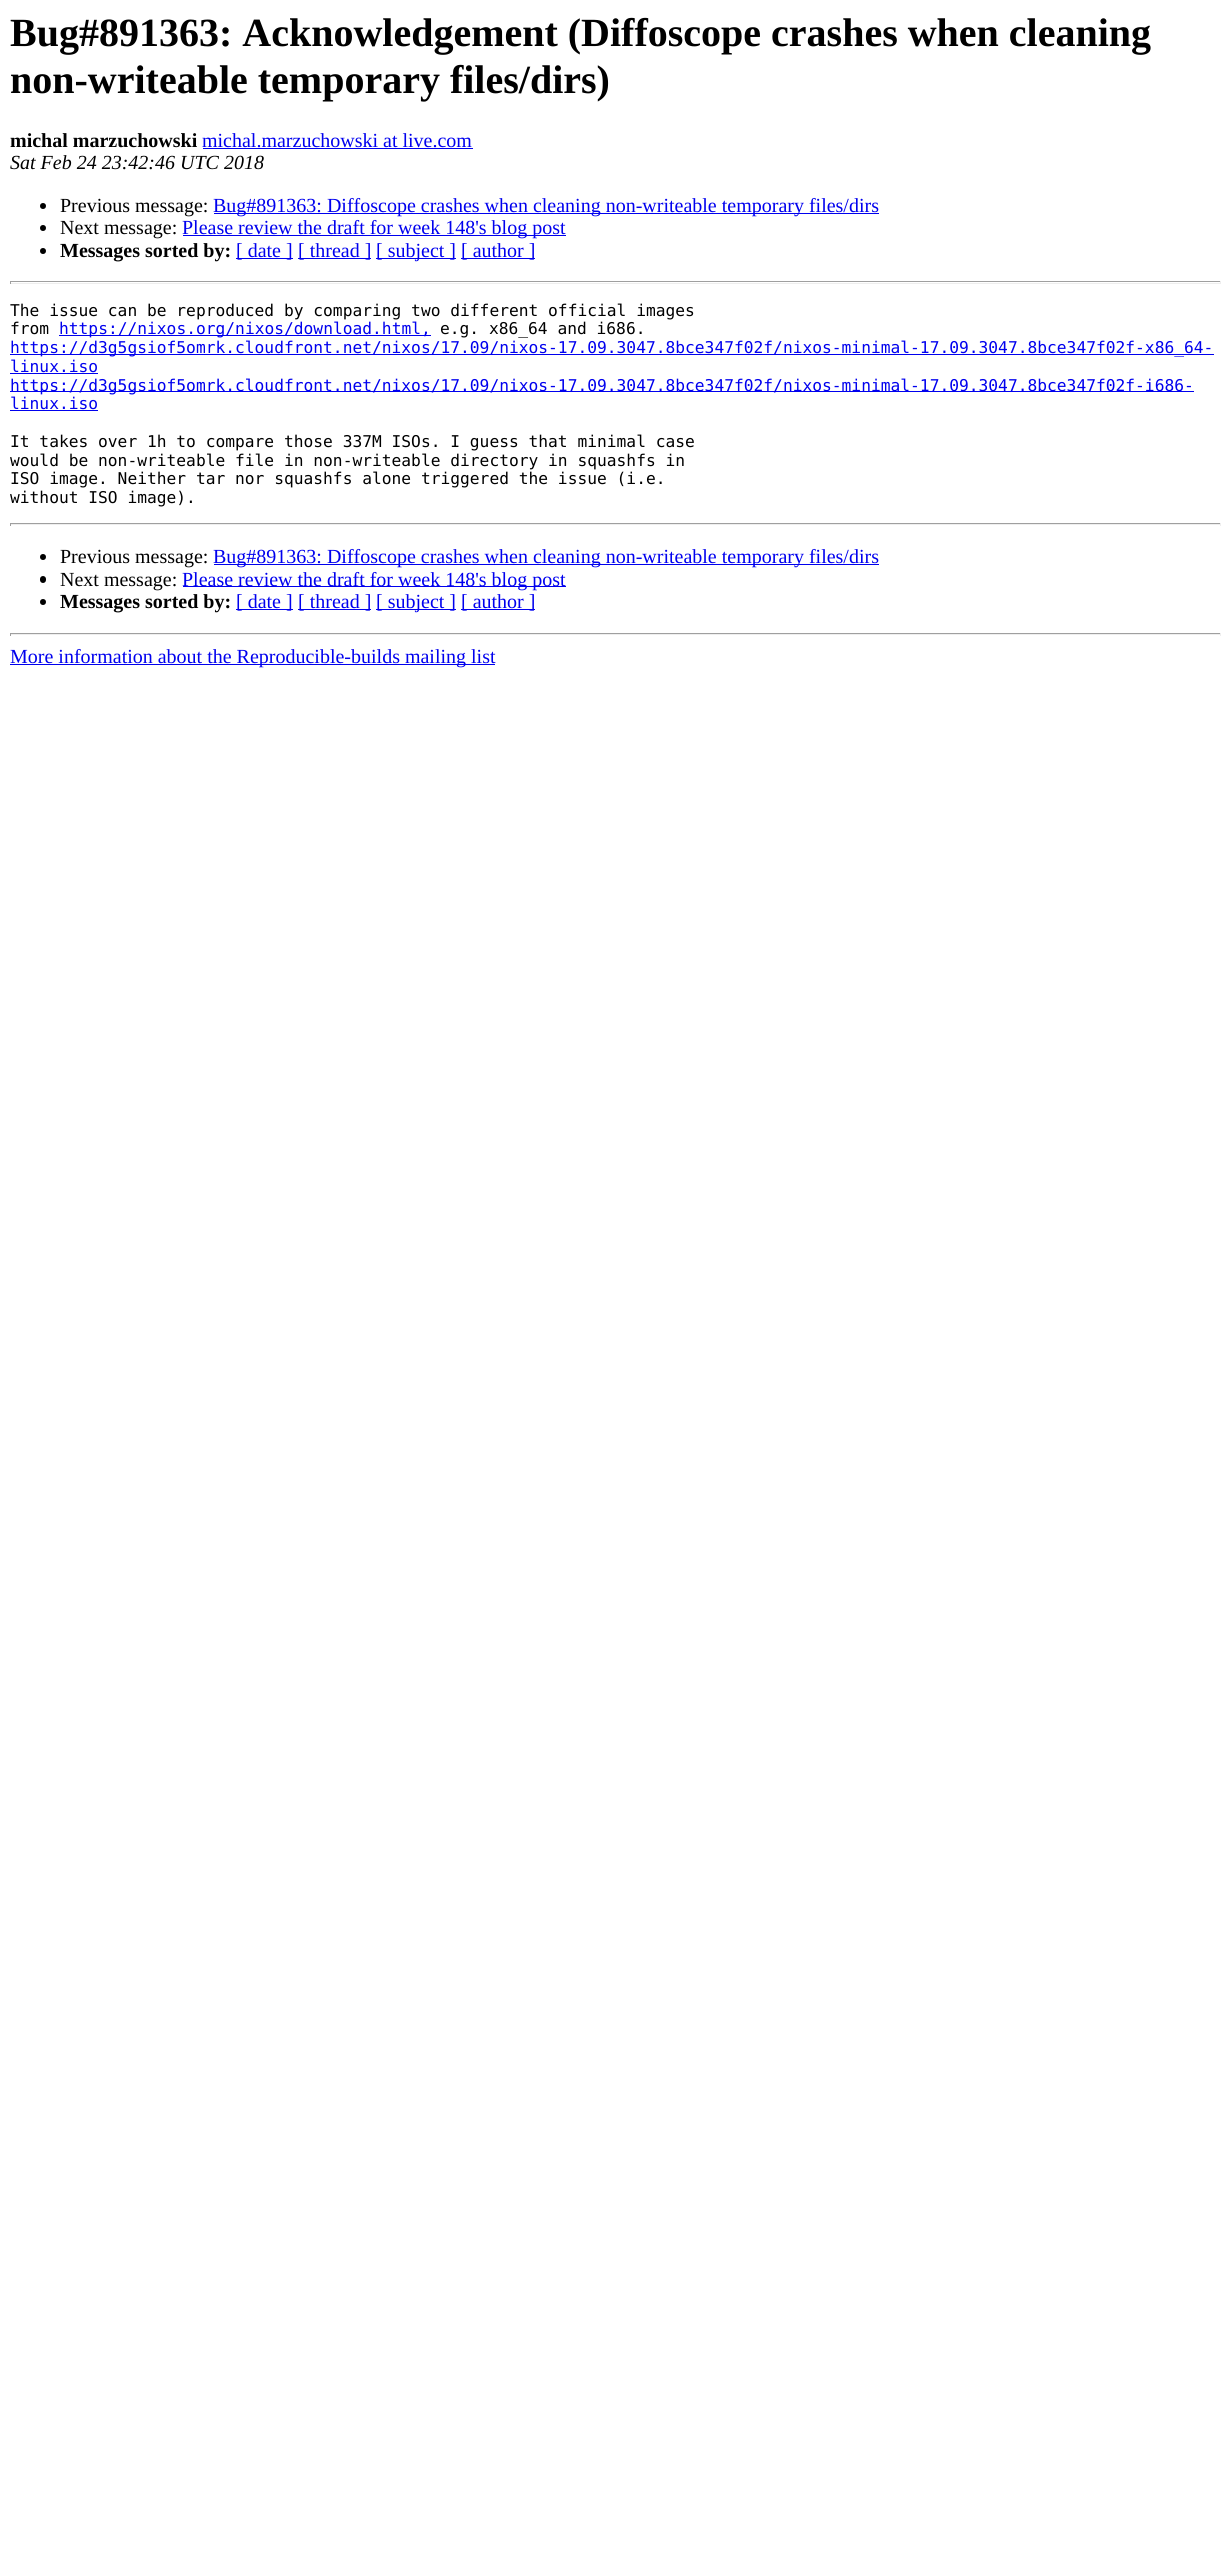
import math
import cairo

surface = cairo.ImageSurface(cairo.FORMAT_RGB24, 1231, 2566)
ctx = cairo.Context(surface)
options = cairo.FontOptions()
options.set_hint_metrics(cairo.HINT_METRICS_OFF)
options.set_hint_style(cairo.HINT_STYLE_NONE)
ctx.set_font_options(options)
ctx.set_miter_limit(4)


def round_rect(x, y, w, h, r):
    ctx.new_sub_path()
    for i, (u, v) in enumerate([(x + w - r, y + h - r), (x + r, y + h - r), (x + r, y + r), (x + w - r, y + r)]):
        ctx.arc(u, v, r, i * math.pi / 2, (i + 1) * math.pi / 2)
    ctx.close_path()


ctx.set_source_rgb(1, 1, 1)
ctx.paint()
ctx.select_font_face("Liberation Serif", cairo.FONT_SLANT_NORMAL, cairo.FONT_WEIGHT_BOLD)
ctx.set_font_size(40)
ctx.set_source_rgb(0, 0, 0)
ctx.move_to(10, 46)
ctx.show_text("Bug#891363: Acknowledgement (Diffoscope crashes when cleaning")
ctx.move_to(10, 93)
ctx.show_text("non-writeable temporary files/dirs)")
ctx.set_font_size(20)
ctx.move_to(10, 147)
ctx.show_text("michal marzuchowski")
ctx.select_font_face("Liberation Serif")
ctx.set_source_rgb(0, 0, 0.933)
ctx.move_to(202, 147)
ctx.show_text("michal.marzuchowski at live.com")
ctx.rectangle(203, 148, 270, 1)
ctx.fill()
ctx.select_font_face("Liberation Serif", cairo.FONT_SLANT_ITALIC)
ctx.set_source_rgb(0, 0, 0)
ctx.move_to(10, 169)
ctx.show_text("Sat Feb 24 23:42:46 UTC 2018")
ctx.new_path()
ctx.arc(43, 206, 3, 0, 2 * math.pi)
ctx.fill()
ctx.select_font_face("Liberation Serif")
ctx.move_to(60, 212)
ctx.show_text("Previous message:")
ctx.set_source_rgb(0, 0, 0.933)
ctx.rectangle(214, 213, 665, 1)
ctx.fill()
ctx.move_to(213, 212)
ctx.show_text("Bug#891363: Diffoscope crashes when cleaning non-writeable temporary files/dirs")
ctx.set_source_rgb(0, 0, 0)
ctx.new_path()
ctx.arc(43, 228, 3, 0, 2 * math.pi)
ctx.fill()
ctx.move_to(60, 234)
ctx.show_text("Next message:")
ctx.set_source_rgb(0, 0, 0.933)
ctx.rectangle(183, 235, 383, 1)
ctx.fill()
ctx.move_to(182, 234)
ctx.show_text("Please review the draft for week 148's blog post")
ctx.set_source_rgb(0, 0, 0)
ctx.new_path()
ctx.arc(43, 251, 3, 0, 2 * math.pi)
ctx.fill()
ctx.select_font_face("Liberation Serif", cairo.FONT_SLANT_NORMAL, cairo.FONT_WEIGHT_BOLD)
ctx.move_to(60, 257)
ctx.show_text("Messages sorted by:")
ctx.set_source_rgb(0, 0, 0.933)
ctx.rectangle(236, 258, 57, 1)
ctx.fill()
ctx.select_font_face("Liberation Serif")
ctx.move_to(236, 257)
ctx.show_text("[ date ]")
ctx.rectangle(298, 258, 73, 1)
ctx.fill()
ctx.move_to(298, 257)
ctx.show_text("[ thread ]")
ctx.rectangle(376, 258, 80, 1)
ctx.fill()
ctx.move_to(376, 257)
ctx.show_text("[ subject ]")
ctx.rectangle(461, 258, 74, 1)
ctx.fill()
ctx.move_to(461, 257)
ctx.show_text("[ author ]")
ctx.set_source_rgb(0.624, 0.624, 0.624)
ctx.rectangle(10, 281, 1211, 1)
ctx.fill()
ctx.set_source_rgb(0.933, 0.933, 0.933)
ctx.rectangle(1220, 281, 1, 3)
ctx.fill()
ctx.rectangle(10, 283, 1211, 1)
ctx.fill()
ctx.set_source_rgb(0.624, 0.624, 0.624)
ctx.rectangle(10, 281, 1, 3)
ctx.fill()
ctx.select_font_face("DejaVu Sans Mono")
ctx.set_font_size(16.25)
ctx.set_source_rgb(0, 0, 0)
ctx.move_to(10, 316)
ctx.show_text("The issue can be reproduced by comparing two different official images")
ctx.move_to(10, 334)
ctx.show_text("from")
ctx.set_source_rgb(0, 0, 0.933)
ctx.rectangle(59, 335, 372, 1)
ctx.fill()
ctx.move_to(59, 334)
ctx.show_text("https://nixos.org/nixos/download.html,")
ctx.set_source_rgb(0, 0, 0)
ctx.move_to(440, 334)
ctx.show_text("e.g. x86_64 and i686.")
ctx.set_source_rgb(0, 0, 0.933)
ctx.rectangle(10, 354, 1204, 1)
ctx.fill()
ctx.move_to(10, 353)
ctx.show_text("https://d3g5gsiof5omrk.cloudfront.net/nixos/17.09/nixos-17.09.3047.8bce347f02f/nixos-minimal-17.09.3047.8bce347f02f-x86_64-")
ctx.move_to(10, 372)
ctx.show_text("linux.iso")
ctx.rectangle(10, 373, 88, 1)
ctx.fill()
ctx.rectangle(10, 391, 1184, 1)
ctx.fill()
ctx.move_to(10, 391)
ctx.show_text("https://d3g5gsiof5omrk.cloudfront.net/nixos/17.09/nixos-17.09.3047.8bce347f02f/nixos-minimal-17.09.3047.8bce347f02f-i686-")
ctx.move_to(10, 409)
ctx.show_text("linux.iso")
ctx.rectangle(10, 410, 88, 1)
ctx.fill()
ctx.set_source_rgb(0, 0, 0)
ctx.move_to(10, 447)
ctx.show_text("It takes over 1h to compare those 337M ISOs. I guess that minimal case")
ctx.move_to(10, 466)
ctx.show_text("would be non-writeable file in non-writeable directory in squashfs in")
ctx.move_to(10, 484)
ctx.show_text("ISO image. Neither tar nor squashfs alone triggered the issue (i.e.")
ctx.move_to(10, 503)
ctx.show_text("without ISO image).")
ctx.set_source_rgb(0.624, 0.624, 0.624)
ctx.rectangle(10, 523, 1211, 1)
ctx.fill()
ctx.set_source_rgb(0.933, 0.933, 0.933)
ctx.rectangle(1220, 523, 1, 3)
ctx.fill()
ctx.rectangle(10, 524, 1211, 1)
ctx.fill()
ctx.set_source_rgb(0.624, 0.624, 0.624)
ctx.rectangle(10, 523, 1, 3)
ctx.fill()
ctx.set_source_rgb(0, 0, 0)
ctx.arc(43, 557, 3, 0, 2 * math.pi)
ctx.fill()
ctx.select_font_face("Liberation Serif")
ctx.set_font_size(20)
ctx.move_to(60, 563)
ctx.show_text("Previous message:")
ctx.set_source_rgb(0, 0, 0.933)
ctx.rectangle(214, 564, 665, 1)
ctx.fill()
ctx.move_to(213, 563)
ctx.show_text("Bug#891363: Diffoscope crashes when cleaning non-writeable temporary files/dirs")
ctx.set_source_rgb(0, 0, 0)
round_rect(40, 576, 6, 7, 3)
ctx.fill()
ctx.move_to(60, 586)
ctx.show_text("Next message:")
ctx.set_source_rgb(0, 0, 0.933)
ctx.rectangle(183, 586, 383, 1)
ctx.fill()
ctx.move_to(182, 586)
ctx.show_text("Please review the draft for week 148's blog post")
ctx.set_source_rgb(0, 0, 0)
ctx.new_path()
ctx.arc(43, 602, 3, 0, 2 * math.pi)
ctx.fill()
ctx.select_font_face("Liberation Serif", cairo.FONT_SLANT_NORMAL, cairo.FONT_WEIGHT_BOLD)
ctx.move_to(60, 608)
ctx.show_text("Messages sorted by:")
ctx.set_source_rgb(0, 0, 0.933)
ctx.rectangle(236, 609, 57, 1)
ctx.fill()
ctx.select_font_face("Liberation Serif")
ctx.move_to(236, 608)
ctx.show_text("[ date ]")
ctx.rectangle(298, 609, 73, 1)
ctx.fill()
ctx.move_to(298, 608)
ctx.show_text("[ thread ]")
ctx.rectangle(376, 609, 80, 1)
ctx.fill()
ctx.move_to(376, 608)
ctx.show_text("[ subject ]")
ctx.rectangle(461, 609, 74, 1)
ctx.fill()
ctx.move_to(461, 608)
ctx.show_text("[ author ]")
ctx.set_source_rgb(0.624, 0.624, 0.624)
ctx.rectangle(10, 633, 1211, 1)
ctx.fill()
ctx.set_source_rgb(0.933, 0.933, 0.933)
ctx.rectangle(1220, 633, 1, 3)
ctx.fill()
ctx.rectangle(10, 634, 1211, 1)
ctx.fill()
ctx.set_source_rgb(0.624, 0.624, 0.624)
ctx.rectangle(10, 633, 1, 3)
ctx.fill()
ctx.set_source_rgb(0, 0, 0.933)
ctx.rectangle(10, 664, 485, 1)
ctx.fill()
ctx.move_to(10, 663)
ctx.show_text("More information about the Reproducible-builds mailing list")
surface.write_to_png("page.png")
